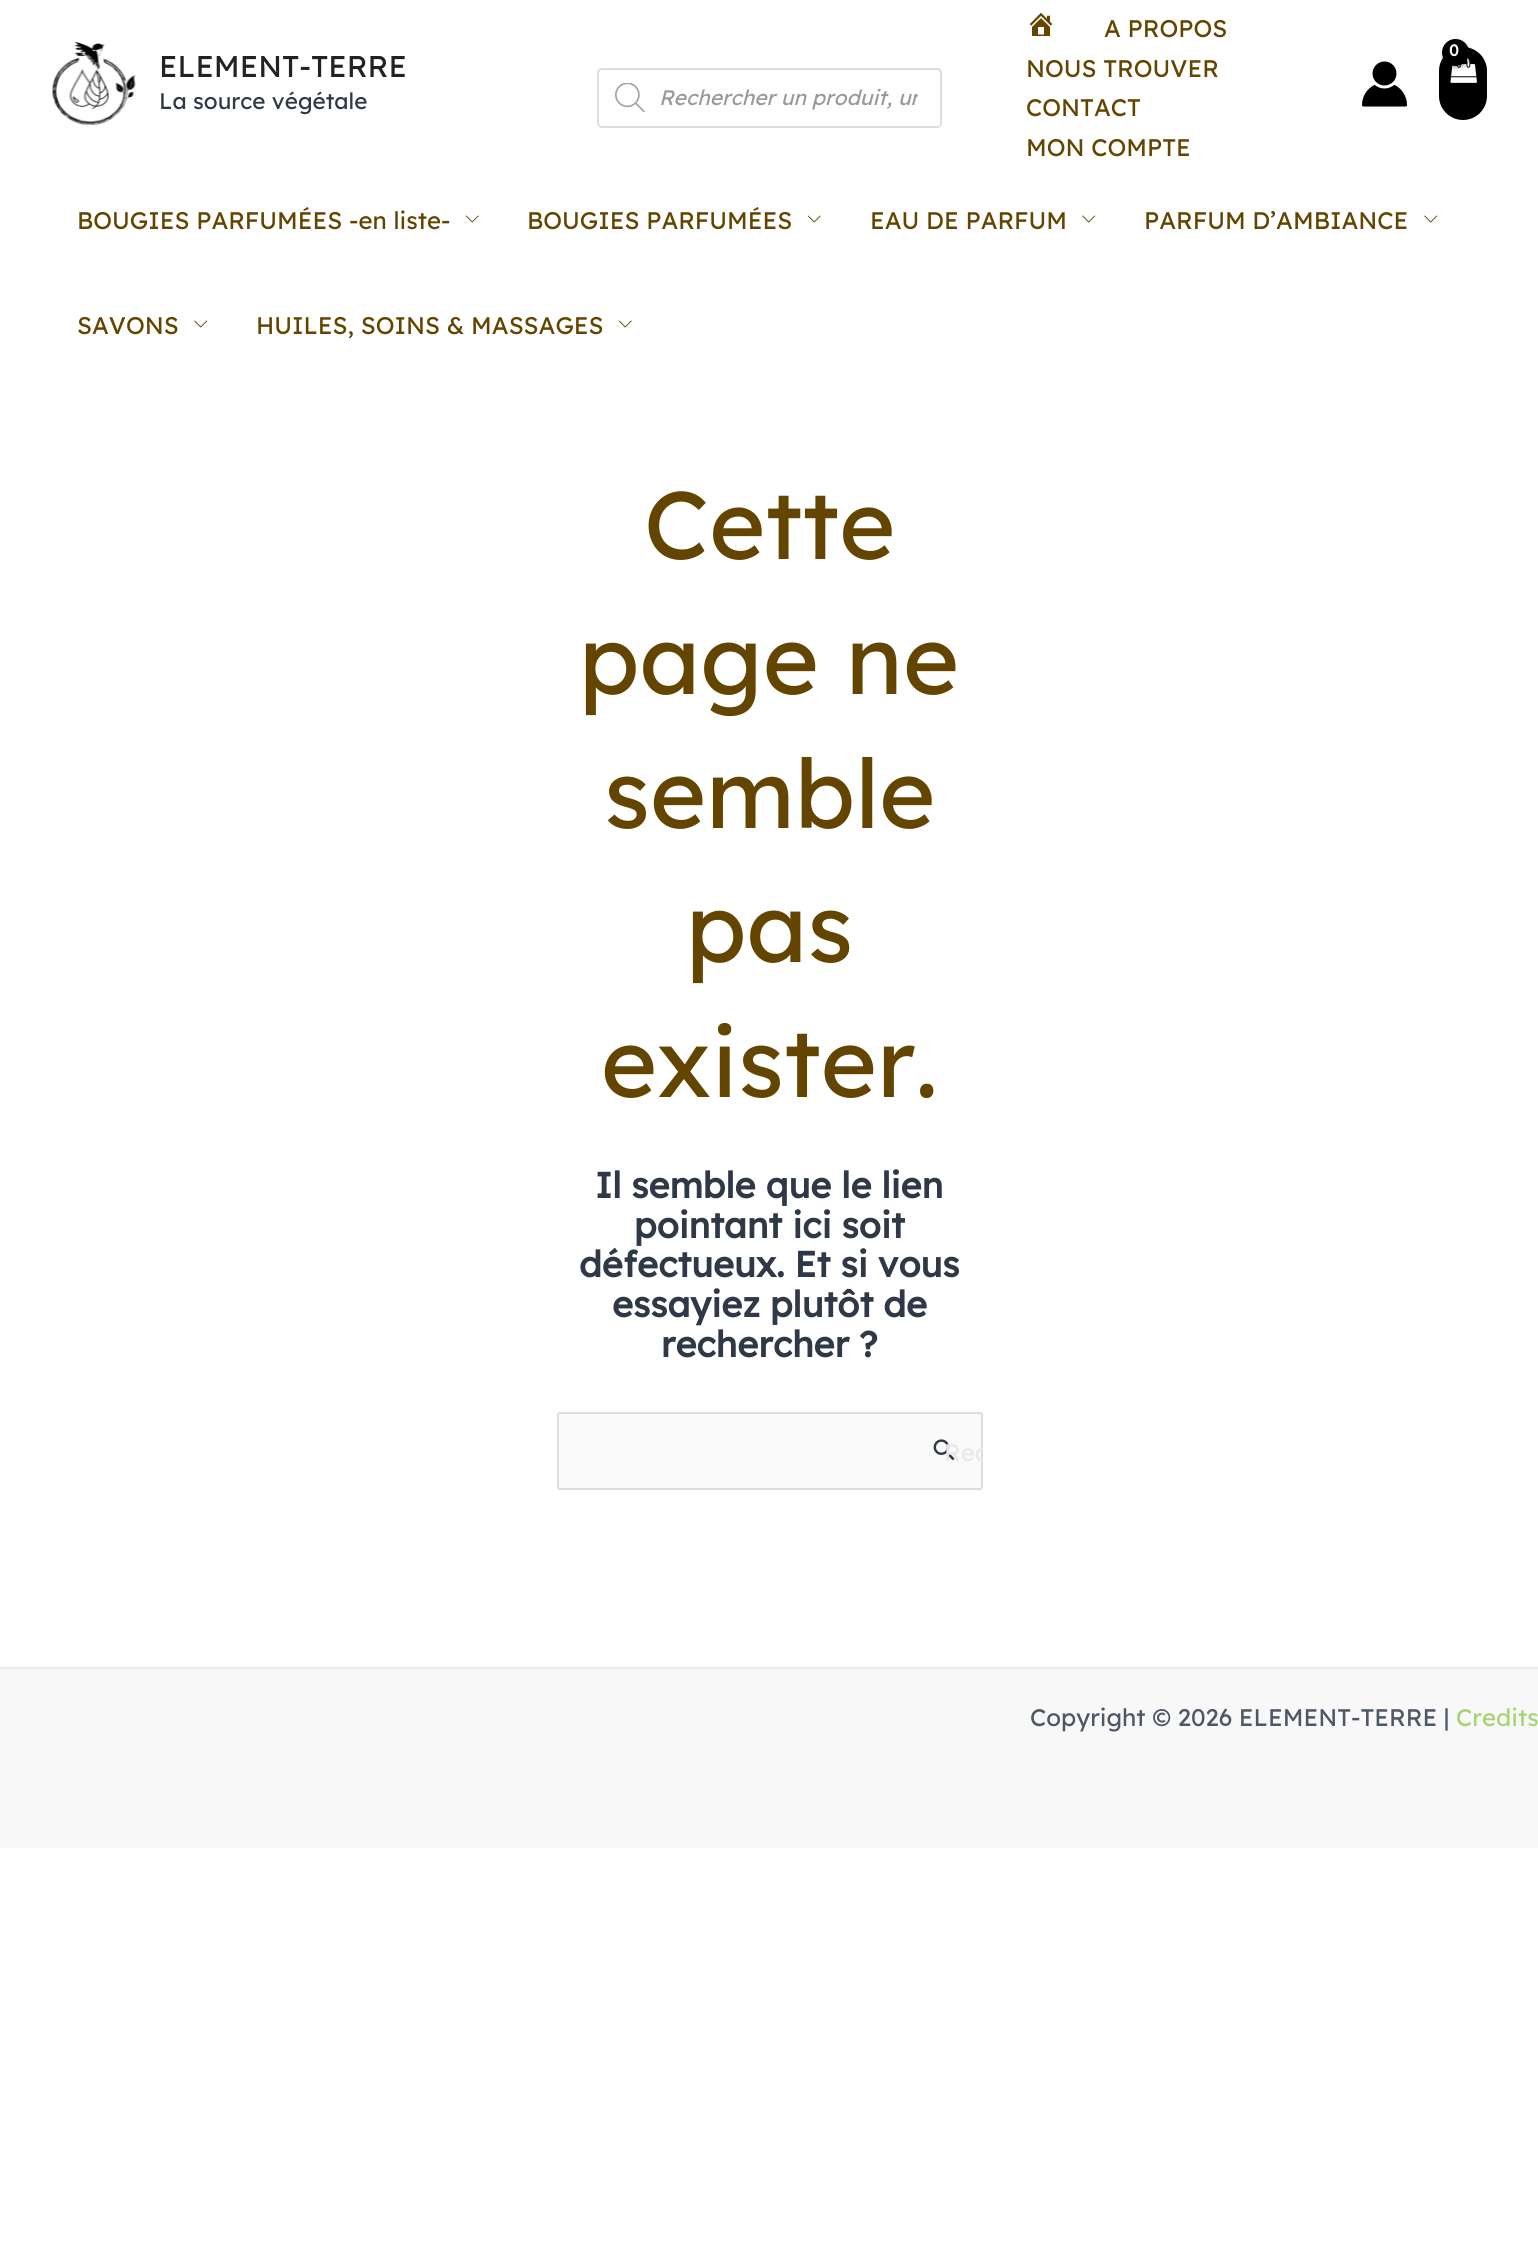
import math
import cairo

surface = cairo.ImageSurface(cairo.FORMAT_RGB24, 1538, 2252)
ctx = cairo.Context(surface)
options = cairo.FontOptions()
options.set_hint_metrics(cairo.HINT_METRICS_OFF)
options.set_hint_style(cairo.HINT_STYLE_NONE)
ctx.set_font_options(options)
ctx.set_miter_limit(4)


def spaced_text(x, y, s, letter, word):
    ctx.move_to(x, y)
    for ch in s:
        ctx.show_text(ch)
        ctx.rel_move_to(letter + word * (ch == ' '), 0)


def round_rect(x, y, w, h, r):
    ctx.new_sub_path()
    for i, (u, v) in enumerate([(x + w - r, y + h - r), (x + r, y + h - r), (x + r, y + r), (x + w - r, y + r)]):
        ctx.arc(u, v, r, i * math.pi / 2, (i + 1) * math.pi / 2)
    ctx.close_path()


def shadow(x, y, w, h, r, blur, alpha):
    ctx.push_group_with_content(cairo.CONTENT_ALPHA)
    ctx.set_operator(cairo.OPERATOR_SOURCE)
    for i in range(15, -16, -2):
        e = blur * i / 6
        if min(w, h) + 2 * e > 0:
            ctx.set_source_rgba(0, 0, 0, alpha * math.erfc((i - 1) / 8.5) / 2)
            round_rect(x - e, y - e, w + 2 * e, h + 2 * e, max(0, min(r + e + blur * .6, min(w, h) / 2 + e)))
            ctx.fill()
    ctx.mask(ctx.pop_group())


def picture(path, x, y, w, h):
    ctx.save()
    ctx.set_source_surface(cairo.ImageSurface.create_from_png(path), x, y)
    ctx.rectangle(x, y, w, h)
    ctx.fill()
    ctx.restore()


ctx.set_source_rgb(1, 1, 1)
ctx.paint()
picture("img1.png", 52, 42, 84, 83)
ctx.select_font_face("Lexend Deca")
ctx.set_font_size(30)
ctx.set_source_rgb(0.133, 0.133, 0.133)
ctx.move_to(159, 77)
ctx.show_text("ELEMENT-TERRE")
ctx.set_font_size(22.5)
ctx.set_source_rgb(0.184, 0.22, 0.278)
ctx.move_to(159, 109)
ctx.show_text("La source végétale")
round_rect(598, 69, 343, 58, 4)
ctx.set_source_rgb(0.867, 0.867, 0.867)
ctx.stroke()
picture("img2.png", 615, 83, 30, 30)
ctx.save()
ctx.rectangle(659, 84, 259, 27)
ctx.clip()
ctx.select_font_face("Lexend Deca", cairo.FONT_SLANT_ITALIC)
ctx.set_font_size(21)
ctx.set_source_rgb(0.6, 0.6, 0.6)
ctx.move_to(659, 105)
ctx.show_text("Rechercher un produit, un")
ctx.restore()
picture("img3.png", 1029, 12, 24, 24)
ctx.set_font_size(24)
ctx.set_source_rgb(0.388, 0.271, 0)
ctx.move_to(1104, 37)
ctx.show_text("A PROPOS")
ctx.move_to(1026, 77)
ctx.show_text("NOUS TROUVER")
ctx.move_to(1026, 116)
ctx.show_text("CONTACT")
ctx.move_to(1026, 156)
ctx.show_text("MON COMPTE")
ctx.set_source_rgb(0, 0, 0)
round_rect(1439, 47, 48, 73, 24)
ctx.fill()
picture("img4.png", 1450, 57, 27, 26)
ctx.set_source_rgb(0, 0, 0)
shadow(1443, 41, 27, 27, 13.5, 2, 0.3)
ctx.set_source_rgb(0, 0, 0)
ctx.arc(1455.5, 52.5, 13.5, 0, 2 * math.pi)
ctx.fill()
ctx.select_font_face("Lexend Deca", cairo.FONT_SLANT_NORMAL, cairo.FONT_WEIGHT_BOLD)
ctx.set_font_size(16)
ctx.set_source_rgb(1, 1, 1)
spaced_text(1449, 56, "0", -1, 0)
picture("img5.png", 1362, 61, 46, 46)
ctx.select_font_face("Lexend Deca")
ctx.set_font_size(24)
ctx.set_source_rgb(0.388, 0.271, 0)
ctx.move_to(77, 229)
ctx.show_text("BOUGIES PARFUMÉES -en liste-")
picture("img6.png", 465, 215, 14, 8)
ctx.move_to(527, 229)
ctx.show_text("BOUGIES PARFUMÉES")
picture("img6.png", 807, 215, 14, 8)
ctx.move_to(870, 229)
ctx.show_text("EAU DE PARFUM")
picture("img7.png", 1082, 215, 14, 8)
ctx.move_to(1144, 229)
ctx.show_text("PARFUM D’AMBIANCE")
picture("img7.png", 1424, 215, 14, 8)
ctx.move_to(77, 334)
ctx.show_text("SAVONS")
picture("img7.png", 194, 320, 14, 8)
ctx.move_to(256, 334)
ctx.show_text("HUILES, SOINS & MASSAGES")
picture("img6.png", 618, 320, 14, 8)
ctx.set_font_size(96)
ctx.move_to(644, 559)
ctx.show_text("Cette")
ctx.move_to(579, 694)
ctx.show_text("page ne")
ctx.move_to(604, 828)
ctx.show_text("semble")
ctx.move_to(686, 962)
ctx.show_text("pas")
ctx.move_to(601, 1097)
ctx.show_text("exister.")
ctx.select_font_face("Lexend Deca", cairo.FONT_SLANT_NORMAL, cairo.FONT_WEIGHT_BOLD)
ctx.set_font_size(36)
ctx.set_source_rgb(0.184, 0.22, 0.278)
ctx.move_to(595, 1198)
ctx.show_text("Il semble que le lien")
ctx.move_to(634, 1238)
ctx.show_text("pointant ici soit")
ctx.move_to(579, 1277)
ctx.show_text("défectueux. Et si vous")
ctx.move_to(612, 1317)
ctx.show_text("essayiez plutôt de")
ctx.move_to(661, 1357)
ctx.show_text("rechercher ?")
ctx.set_source_rgb(0.98, 0.98, 0.98)
round_rect(558, 1413, 424, 76, 2)
ctx.fill_preserve()
ctx.set_source_rgb(0.867, 0.867, 0.867)
ctx.stroke()
picture("img8.png", 933, 1439, 22, 22)
ctx.save()
round_rect(915, 1412, 68, 84, 3)
ctx.clip()
ctx.select_font_face("Lexend Deca")
ctx.set_font_size(24)
ctx.set_source_rgb(0.906, 0.91, 0.914)
ctx.move_to(944, 1461)
ctx.show_text("Rec")
ctx.restore()
ctx.set_source_rgb(0.969, 0.969, 0.973)
ctx.rectangle(0, 1669, 1538, 179)
ctx.fill()
ctx.set_source_rgb(0.918, 0.918, 0.918)
ctx.rectangle(0, 1667, 1538, 2)
ctx.fill()
ctx.select_font_face("Lexend Deca")
ctx.set_font_size(24)
ctx.set_source_rgb(0.306, 0.341, 0.408)
ctx.move_to(1030, 1726)
ctx.show_text("Copyright © 2026 ELEMENT-TERRE |")
ctx.set_source_rgb(0.639, 0.835, 0.451)
ctx.move_to(1456, 1726)
ctx.show_text("Credits")
surface.write_to_png("page.png")
